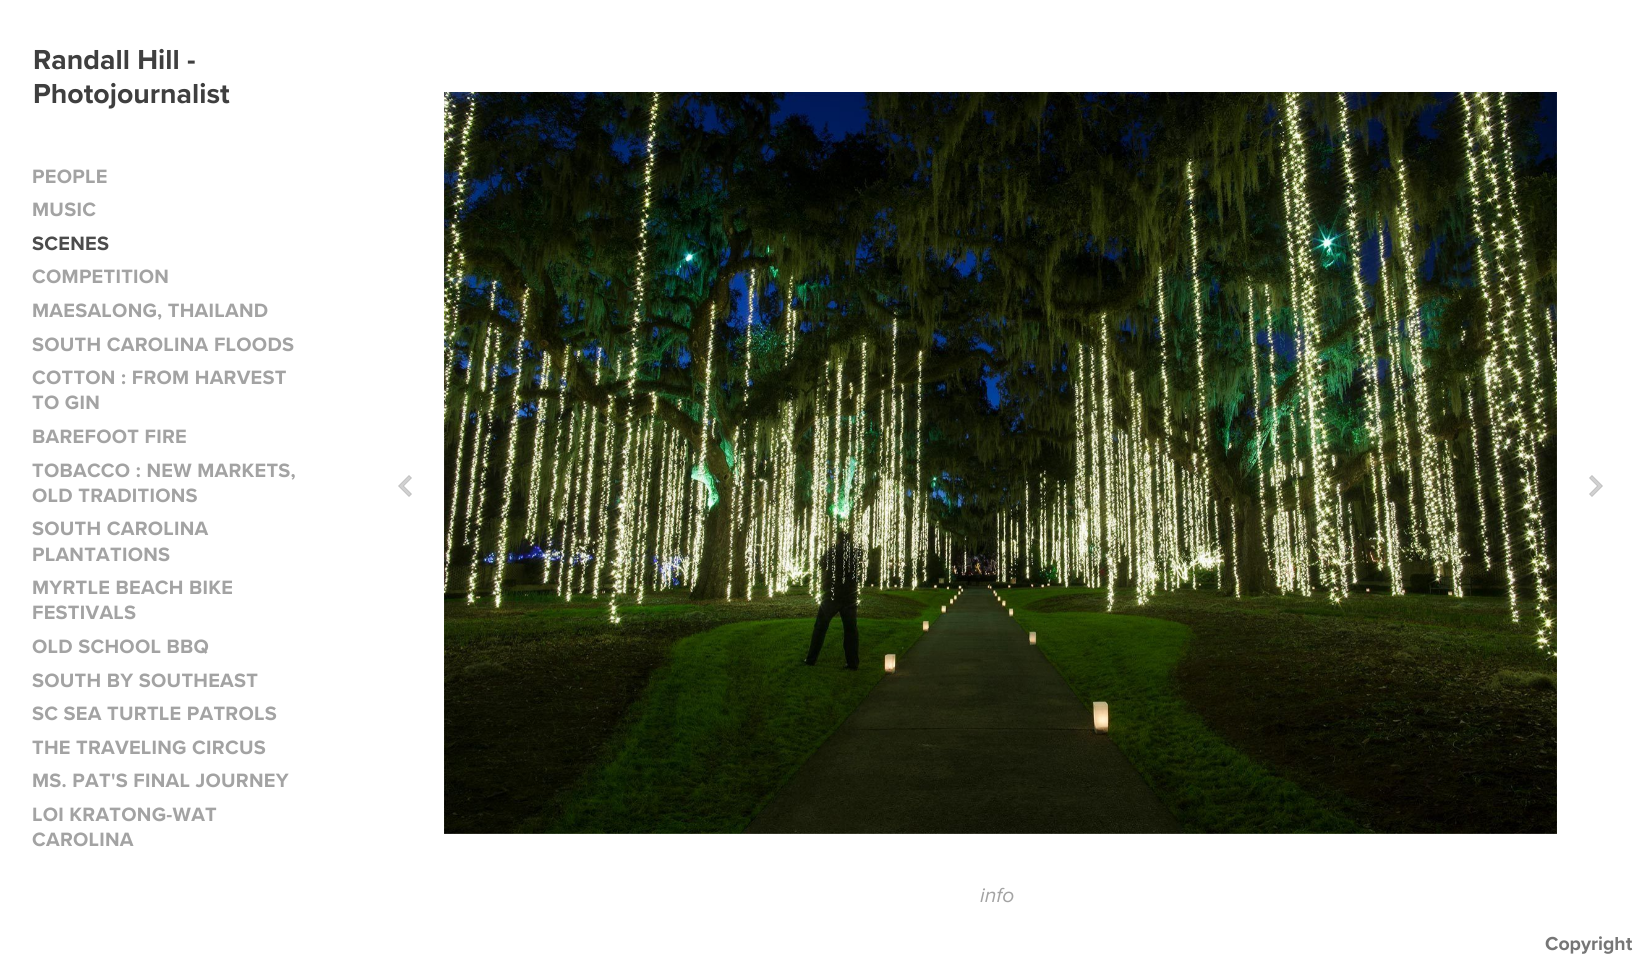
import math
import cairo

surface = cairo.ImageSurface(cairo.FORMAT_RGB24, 1646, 969)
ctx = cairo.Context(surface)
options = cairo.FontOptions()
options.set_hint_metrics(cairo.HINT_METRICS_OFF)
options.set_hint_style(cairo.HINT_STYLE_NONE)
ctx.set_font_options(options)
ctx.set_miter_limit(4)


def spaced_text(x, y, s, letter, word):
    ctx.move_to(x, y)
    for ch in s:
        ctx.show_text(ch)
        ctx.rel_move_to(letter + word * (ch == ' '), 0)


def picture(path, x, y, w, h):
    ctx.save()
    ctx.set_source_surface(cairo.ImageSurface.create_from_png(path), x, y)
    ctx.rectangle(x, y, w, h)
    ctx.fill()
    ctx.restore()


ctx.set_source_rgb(1, 1, 1)
ctx.paint()
ctx.select_font_face("Proxima Nova", cairo.FONT_SLANT_NORMAL, cairo.FONT_WEIGHT_BOLD)
ctx.set_font_size(28.5)
ctx.set_source_rgb(0.247, 0.247, 0.247)
ctx.move_to(33, 69)
ctx.show_text("Randall Hill -")
ctx.move_to(33, 103)
ctx.show_text("Photojournalist")
ctx.set_font_size(20)
ctx.set_source_rgb(0.639, 0.639, 0.639)
spaced_text(32, 183, "PEOPLE", 0.25, 0)
spaced_text(32, 216, "MUSIC", 0.25, 0)
ctx.set_source_rgb(0.298, 0.298, 0.298)
spaced_text(32, 250, "SCENES", 0.25, 0)
ctx.set_source_rgb(0.639, 0.639, 0.639)
spaced_text(32, 283, "COMPETITION", 0.25, 0)
spaced_text(32, 317, "MAESALONG, THAILAND", 0.25, 0)
spaced_text(32, 351, "SOUTH CAROLINA FLOODS", 0.25, 0)
spaced_text(32, 384, "COTTON : FROM HARVEST", 0.25, 0)
spaced_text(32, 409, "TO GIN", 0.25, 0)
spaced_text(32, 443, "BAREFOOT FIRE", 0.25, 0)
spaced_text(32, 477, "TOBACCO : NEW MARKETS,", 0.25, 0)
spaced_text(32, 502, "OLD TRADITIONS", 0.25, 0)
spaced_text(32, 535, "SOUTH CAROLINA", 0.25, 0)
spaced_text(32, 561, "PLANTATIONS", 0.25, 0)
spaced_text(32, 594, "MYRTLE BEACH BIKE", 0.25, 0)
spaced_text(32, 619, "FESTIVALS", 0.25, 0)
spaced_text(32, 653, "OLD SCHOOL BBQ", 0.25, 0)
spaced_text(32, 687, "SOUTH BY SOUTHEAST", 0.25, 0)
spaced_text(32, 720, "SC SEA TURTLE PATROLS", 0.25, 0)
spaced_text(32, 754, "THE TRAVELING CIRCUS", 0.25, 0)
spaced_text(32, 787, "MS. PAT'S FINAL JOURNEY", 0.25, 0)
spaced_text(32, 821, "LOI KRATONG-WAT", 0.25, 0)
spaced_text(32, 846, "CAROLINA", 0.25, 0)
picture("img1.png", 398, 475, 14, 22)
picture("img2.png", 444, 92, 1113, 742)
picture("img3.png", 1589, 475, 14, 22)
ctx.select_font_face("Proxima Nova", cairo.FONT_SLANT_ITALIC)
ctx.set_font_size(21)
ctx.move_to(980, 902)
ctx.show_text("info")
ctx.select_font_face("Proxima Nova", cairo.FONT_SLANT_NORMAL, cairo.FONT_WEIGHT_BOLD)
ctx.set_font_size(19.5)
ctx.set_source_rgb(0.463, 0.463, 0.463)
ctx.move_to(1545, 950)
ctx.show_text("Copyright")
surface.write_to_png("page.png")
